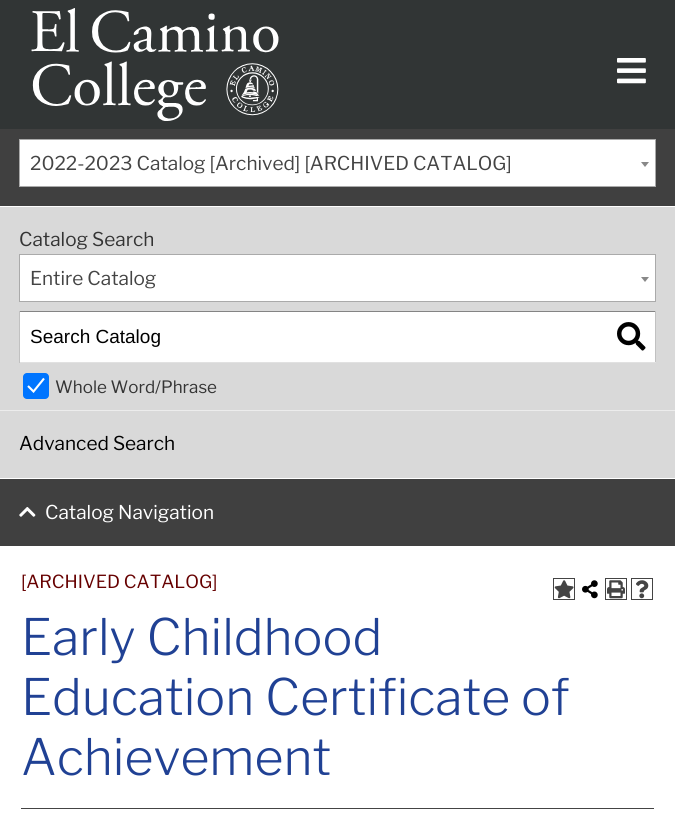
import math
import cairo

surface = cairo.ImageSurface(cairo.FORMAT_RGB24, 675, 823)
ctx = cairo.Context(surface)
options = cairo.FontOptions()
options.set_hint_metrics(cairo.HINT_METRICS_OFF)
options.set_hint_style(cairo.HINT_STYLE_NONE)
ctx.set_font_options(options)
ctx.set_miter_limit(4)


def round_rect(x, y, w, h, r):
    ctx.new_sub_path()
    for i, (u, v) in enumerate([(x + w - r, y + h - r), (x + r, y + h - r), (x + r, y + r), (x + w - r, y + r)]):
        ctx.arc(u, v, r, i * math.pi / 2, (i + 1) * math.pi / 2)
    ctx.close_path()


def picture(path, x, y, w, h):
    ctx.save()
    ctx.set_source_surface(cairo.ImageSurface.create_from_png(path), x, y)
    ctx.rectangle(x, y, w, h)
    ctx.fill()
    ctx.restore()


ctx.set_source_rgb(1, 1, 1)
ctx.paint()
ctx.set_source_rgb(0.192, 0.208, 0.208)
ctx.rectangle(0, 0, 675, 129)
ctx.fill()
picture("img1.png", 31, 8, 248, 113)
picture("img2.png", 617, 58, 29, 26)
ctx.set_source_rgb(0.251, 0.251, 0.251)
ctx.rectangle(0, 129, 675, 77)
ctx.fill()
ctx.set_source_rgb(1, 1, 1)
ctx.rectangle(19.5, 139.5, 636, 47)
ctx.fill_preserve()
ctx.set_source_rgb(0.667, 0.667, 0.667)
ctx.set_line_width(1)
ctx.stroke()
ctx.select_font_face("Libre Franklin")
ctx.set_font_size(19)
ctx.set_source_rgb(0.267, 0.267, 0.267)
ctx.move_to(30, 170)
ctx.show_text("2022-2023 Catalog [Archived] [ARCHIVED CATALOG]")
ctx.set_source_rgb(0.533, 0.533, 0.533)
ctx.new_path()
ctx.move_to(641, 162)
ctx.line_to(649, 162)
ctx.line_to(645, 167)
ctx.close_path()
ctx.fill()
ctx.set_source_rgb(0.851, 0.851, 0.851)
ctx.rectangle(0, 207, 675, 271)
ctx.fill()
ctx.set_source_rgb(0.204, 0.204, 0.204)
ctx.move_to(19, 246)
ctx.show_text("Catalog Search")
ctx.set_source_rgb(1, 1, 1)
ctx.rectangle(19.5, 254.5, 636, 47)
ctx.fill_preserve()
ctx.set_source_rgb(0.667, 0.667, 0.667)
ctx.stroke()
ctx.set_source_rgb(0.267, 0.267, 0.267)
ctx.move_to(30, 285)
ctx.show_text("Entire Catalog")
ctx.set_source_rgb(0.533, 0.533, 0.533)
ctx.new_path()
ctx.move_to(641, 277)
ctx.line_to(649, 277)
ctx.line_to(645, 282)
ctx.close_path()
ctx.fill()
ctx.set_source_rgb(1, 1, 1)
ctx.rectangle(20, 312, 635, 50)
ctx.fill()
ctx.set_source_rgb(0.518, 0.518, 0.518)
ctx.rectangle(19, 311, 637, 1)
ctx.fill()
ctx.set_source_rgb(0.757, 0.757, 0.757)
ctx.rectangle(655, 311, 1, 52)
ctx.fill()
ctx.set_source_rgb(0.882, 0.882, 0.882)
ctx.rectangle(19, 362, 637, 1)
ctx.fill()
ctx.set_source_rgb(0.757, 0.757, 0.757)
ctx.rectangle(19, 311, 1, 52)
ctx.fill()
ctx.select_font_face("Liberation Sans")
ctx.set_source_rgb(0, 0, 0)
ctx.move_to(30, 343)
ctx.show_text("Search Catalog")
picture("img3.png", 617, 322, 29, 29)
ctx.set_source_rgb(0, 0.459, 1)
round_rect(23, 373, 26, 26, 4)
ctx.fill()
ctx.new_path()
ctx.move_to(28, 386)
ctx.line_to(33.5, 391.5)
ctx.line_to(44, 378.5)
ctx.set_source_rgb(1, 1, 1)
ctx.set_line_width(2.1)
ctx.stroke()
ctx.select_font_face("Libre Franklin")
ctx.set_font_size(17)
ctx.set_source_rgb(0.204, 0.204, 0.204)
ctx.move_to(55, 393)
ctx.show_text("Whole Word/Phrase")
ctx.set_source_rgb(0.925, 0.925, 0.925)
ctx.rectangle(0, 410, 675, 1)
ctx.fill()
ctx.set_font_size(19)
ctx.set_source_rgb(0, 0, 0)
ctx.move_to(19, 450)
ctx.show_text("Advanced Search")
ctx.set_source_rgb(0.251, 0.251, 0.251)
ctx.rectangle(0, 479, 675, 67)
ctx.fill()
picture("img4.png", 19, 507, 17, 10)
ctx.set_source_rgb(1, 1, 1)
ctx.move_to(45, 519)
ctx.show_text("Catalog Navigation")
ctx.set_font_size(18)
ctx.set_source_rgb(0.4, 0, 0)
ctx.move_to(21, 588)
ctx.show_text("[ARCHIVED CATALOG]")
ctx.rectangle(553.5, 578.5, 21, 21)
ctx.set_source_rgb(0.267, 0.267, 0.267)
ctx.set_line_width(1)
ctx.stroke()
picture("img5.png", 554, 580, 20, 19)
picture("img6.png", 582, 580, 16, 19)
ctx.rectangle(605.5, 578.5, 21, 21)
ctx.stroke()
picture("img7.png", 607, 580, 18, 19)
ctx.rectangle(631.5, 578.5, 21, 21)
ctx.stroke()
picture("img8.png", 636, 580, 13, 19)
ctx.select_font_face("Libre Franklin Light")
ctx.set_font_size(50)
ctx.set_source_rgb(0.125, 0.255, 0.58)
ctx.move_to(21, 655)
ctx.show_text("Early Childhood")
ctx.move_to(21, 715)
ctx.show_text("Education Certificate of")
ctx.move_to(21, 775)
ctx.show_text("Achievement")
ctx.set_source_rgb(0.267, 0.267, 0.267)
ctx.rectangle(21, 808, 633, 1)
ctx.fill()
surface.write_to_png("page.png")
